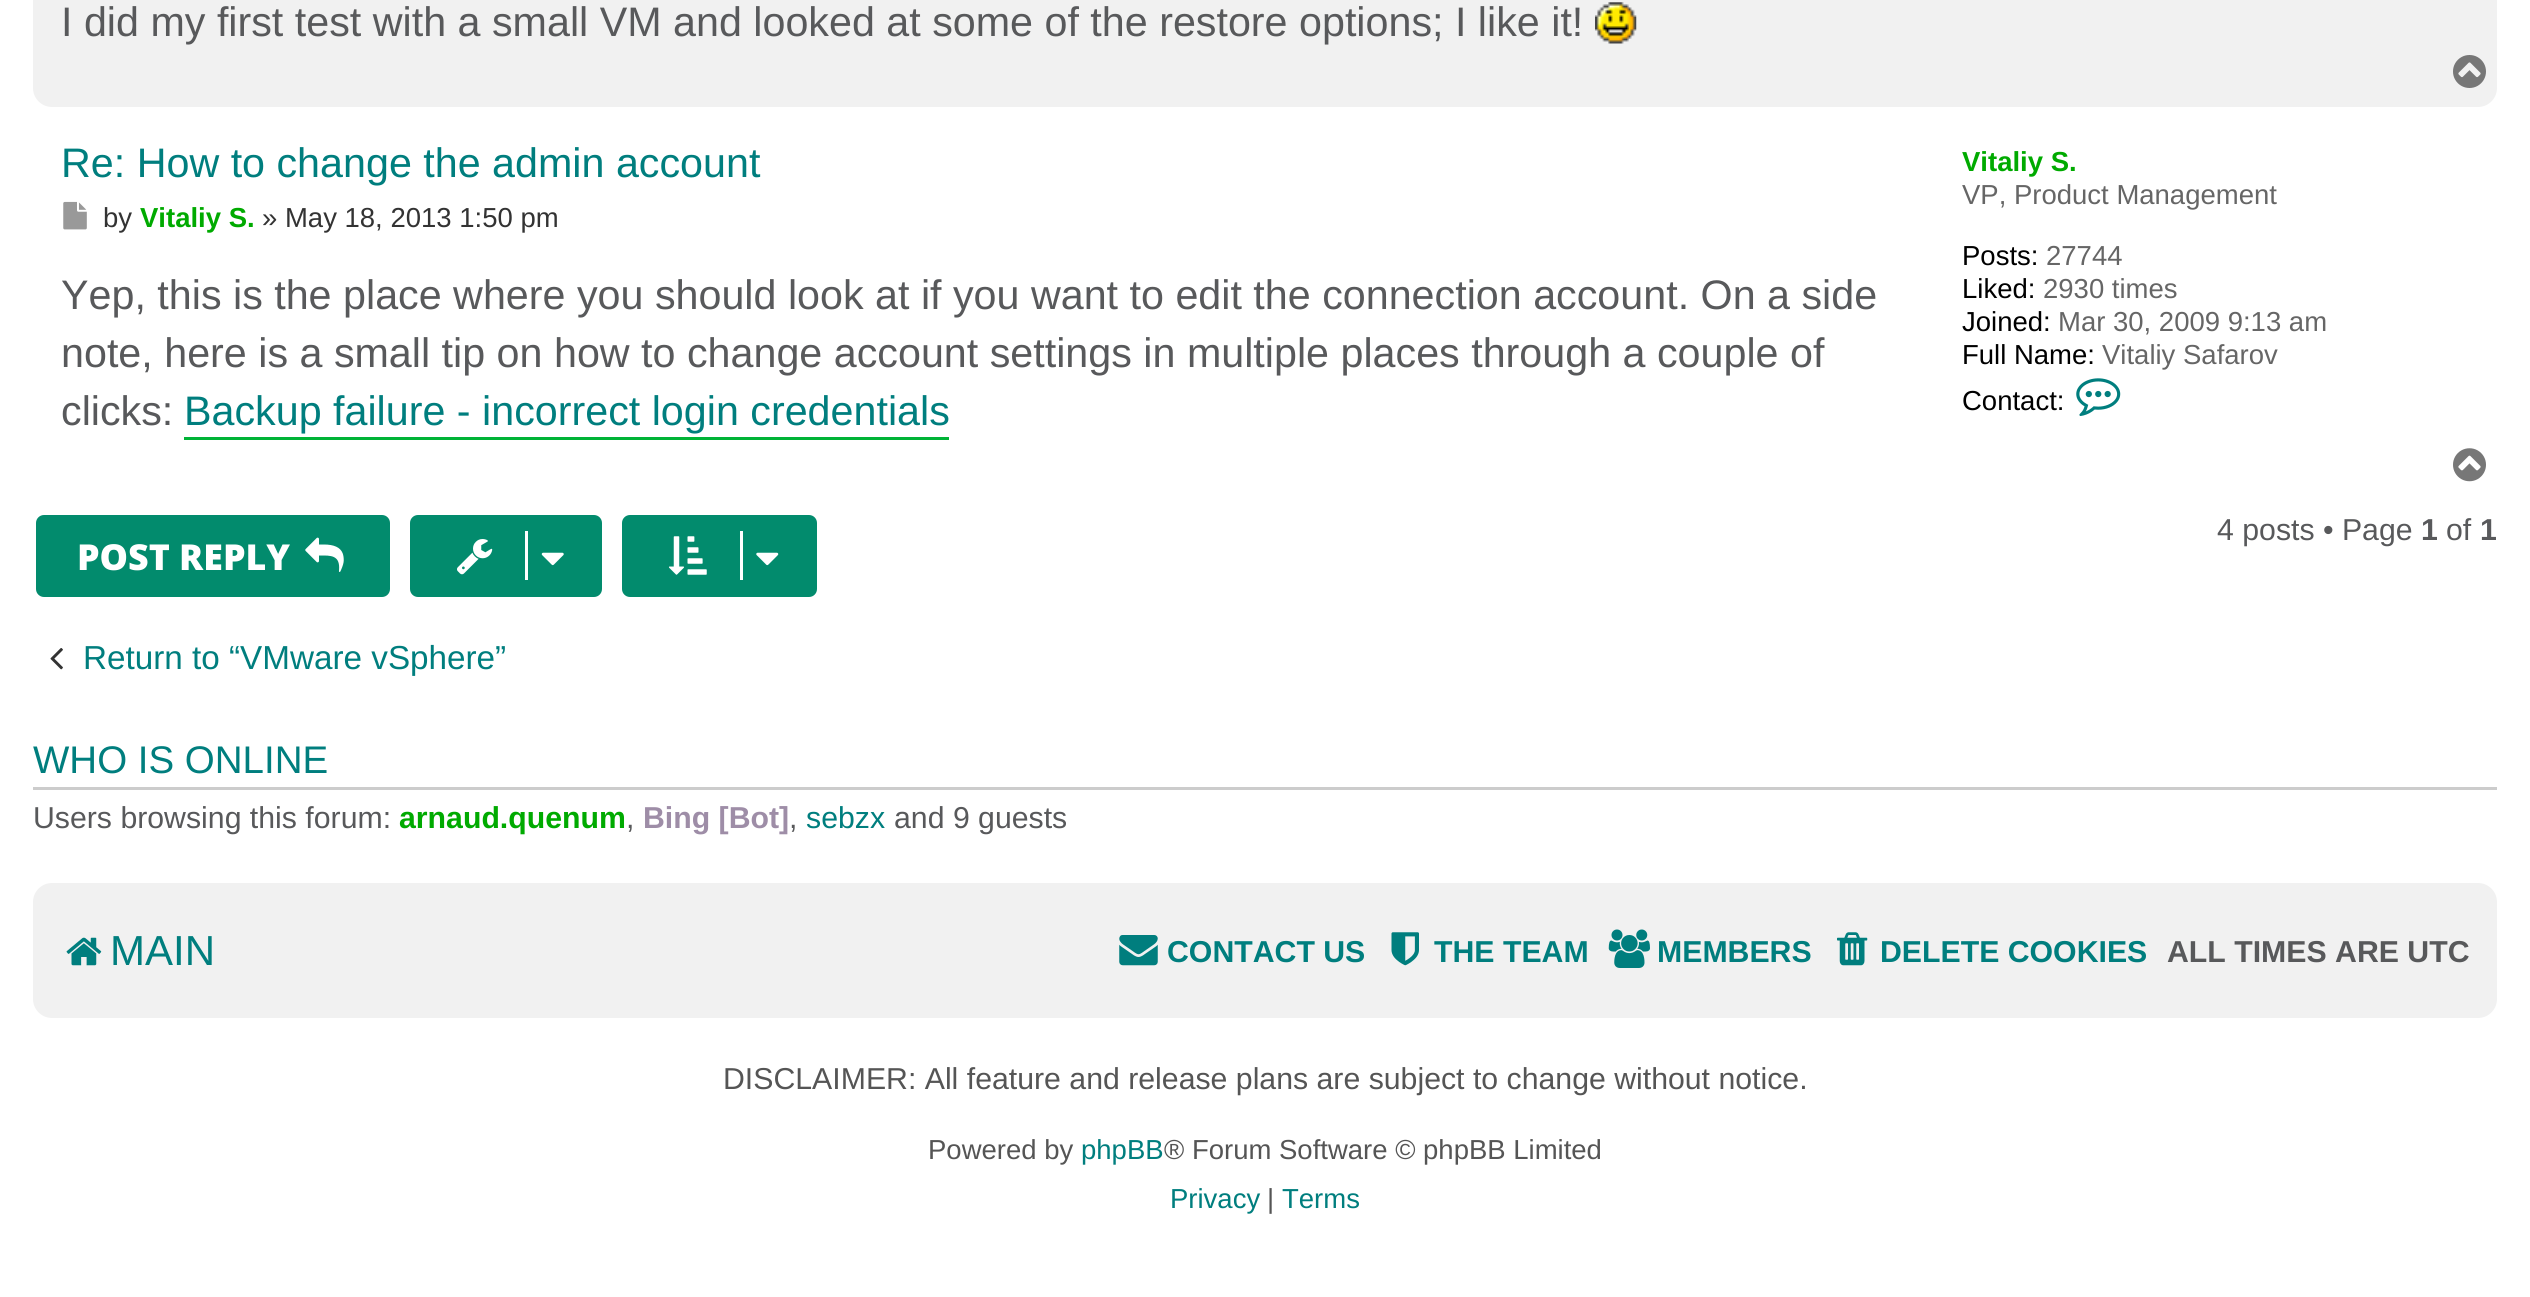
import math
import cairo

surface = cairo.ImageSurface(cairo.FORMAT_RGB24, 2530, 1297)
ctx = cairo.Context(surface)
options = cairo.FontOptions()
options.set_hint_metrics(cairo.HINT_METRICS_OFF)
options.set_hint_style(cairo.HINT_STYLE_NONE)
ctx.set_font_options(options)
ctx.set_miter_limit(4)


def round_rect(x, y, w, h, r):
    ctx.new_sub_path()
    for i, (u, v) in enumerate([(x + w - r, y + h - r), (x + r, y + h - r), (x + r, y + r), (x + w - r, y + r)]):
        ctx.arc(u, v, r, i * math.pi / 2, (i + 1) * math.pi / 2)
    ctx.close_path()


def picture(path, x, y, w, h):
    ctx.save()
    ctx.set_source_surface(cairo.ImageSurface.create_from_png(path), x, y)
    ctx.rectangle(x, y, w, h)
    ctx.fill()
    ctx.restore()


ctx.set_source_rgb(1, 1, 1)
ctx.paint()
ctx.set_source_rgb(0.945, 0.945, 0.945)
round_rect(33, -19, 2464, 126, 19)
ctx.fill()
ctx.select_font_face("Liberation Sans")
ctx.set_font_size(41.25)
ctx.set_source_rgb(0.345, 0.349, 0.357)
ctx.move_to(61, 36)
ctx.show_text("I did my first test with a small VM and looked at some of the restore options; I like it!")
picture("img1.png", 1595, 2, 42, 42)
picture("img2.png", 2453, 55, 33, 33)
ctx.set_source_rgb(0, 0.494, 0.494)
ctx.move_to(61, 177)
ctx.show_text("Re: How to change the admin account")
picture("img3.png", 63, 201, 24, 29)
ctx.set_font_size(27.5)
ctx.set_source_rgb(0.2, 0.2, 0.2)
ctx.move_to(103, 227)
ctx.show_text("by")
ctx.select_font_face("Liberation Sans", cairo.FONT_SLANT_NORMAL, cairo.FONT_WEIGHT_BOLD)
ctx.set_source_rgb(0, 0.667, 0)
ctx.move_to(140, 227)
ctx.show_text("Vitaliy S.")
ctx.select_font_face("Liberation Sans")
ctx.set_source_rgb(0.2, 0.2, 0.2)
ctx.move_to(262, 227)
ctx.show_text("» May 18, 2013 1:50 pm")
ctx.set_font_size(41.25)
ctx.set_source_rgb(0.345, 0.349, 0.357)
ctx.move_to(61, 309)
ctx.show_text("Yep, this is the place where you should look at if you want to edit the connection account. On a side")
ctx.move_to(61, 367)
ctx.show_text("note, here is a small tip on how to change account settings in multiple places through a couple of")
ctx.move_to(61, 425)
ctx.show_text("clicks:")
ctx.set_source_rgb(0, 0.702, 0.212)
ctx.rectangle(184, 437, 765, 3)
ctx.fill()
ctx.set_source_rgb(0, 0.494, 0.494)
ctx.move_to(184, 425)
ctx.show_text("Backup failure - incorrect login credentials")
ctx.select_font_face("Liberation Sans", cairo.FONT_SLANT_NORMAL, cairo.FONT_WEIGHT_BOLD)
ctx.set_font_size(27.5)
ctx.set_source_rgb(0, 0.667, 0)
ctx.move_to(1962, 171)
ctx.show_text("Vitaliy S.")
ctx.select_font_face("Liberation Sans")
ctx.set_source_rgb(0.4, 0.4, 0.4)
ctx.move_to(1962, 204)
ctx.show_text("VP, Product Management")
ctx.set_source_rgb(0, 0, 0)
ctx.move_to(1962, 265)
ctx.show_text("Posts:")
ctx.set_source_rgb(0.4, 0.4, 0.4)
ctx.move_to(2046, 265)
ctx.show_text("27744")
ctx.set_source_rgb(0, 0, 0)
ctx.move_to(1962, 298)
ctx.show_text("Liked:")
ctx.set_source_rgb(0.4, 0.4, 0.4)
ctx.move_to(2043, 298)
ctx.show_text("2930 times")
ctx.set_source_rgb(0, 0, 0)
ctx.move_to(1962, 331)
ctx.show_text("Joined:")
ctx.set_source_rgb(0.4, 0.4, 0.4)
ctx.move_to(2058, 331)
ctx.show_text("Mar 30, 2009 9:13 am")
ctx.set_source_rgb(0, 0, 0)
ctx.move_to(1962, 364)
ctx.show_text("Full Name:")
ctx.set_source_rgb(0.4, 0.4, 0.4)
ctx.move_to(2102, 364)
ctx.show_text("Vitaliy Safarov")
ctx.set_source_rgb(0, 0, 0)
ctx.move_to(1962, 410)
ctx.show_text("Contact:")
picture("img4.png", 2076, 378, 45, 38)
picture("img5.png", 2453, 448, 33, 34)
ctx.set_source_rgb(0.008, 0.545, 0.427)
round_rect(408.5, 513.5, 195, 85, 9.5)
ctx.fill_preserve()
ctx.set_source_rgb(1, 1, 1)
ctx.set_line_width(3)
ctx.stroke()
picture("img6.png", 457, 539, 36, 36)
ctx.rectangle(525, 531, 3, 49)
ctx.fill()
picture("img7.png", 541, 552, 23, 14)
ctx.set_source_rgb(0.008, 0.545, 0.427)
round_rect(620.5, 513.5, 198, 85, 9.5)
ctx.fill_preserve()
ctx.set_source_rgb(1, 1, 1)
ctx.stroke()
picture("img8.png", 669, 536, 38, 39)
ctx.rectangle(740, 531, 3, 49)
ctx.fill()
picture("img9.png", 756, 552, 23, 14)
ctx.set_font_size(30.25)
ctx.set_source_rgb(0.345, 0.349, 0.357)
ctx.move_to(2217, 540)
ctx.show_text("4 posts • Page")
ctx.select_font_face("Liberation Sans", cairo.FONT_SLANT_NORMAL, cairo.FONT_WEIGHT_BOLD)
ctx.move_to(2421, 540)
ctx.show_text("1")
ctx.select_font_face("Liberation Sans")
ctx.move_to(2446, 540)
ctx.show_text("of")
ctx.select_font_face("Liberation Sans", cairo.FONT_SLANT_NORMAL, cairo.FONT_WEIGHT_BOLD)
ctx.move_to(2480, 540)
ctx.show_text("1")
ctx.set_source_rgb(0.008, 0.545, 0.427)
round_rect(34.5, 513.5, 357, 85, 9.5)
ctx.fill_preserve()
ctx.set_source_rgb(1, 1, 1)
ctx.stroke()
ctx.select_font_face("Open Sans ExtraBold")
ctx.set_font_size(35.75)
ctx.move_to(77, 570)
ctx.show_text("POST REPLY")
picture("img10.png", 305, 537, 39, 35)
picture("img11.png", 50, 648, 13, 22)
ctx.select_font_face("Liberation Sans")
ctx.set_font_size(33.25)
ctx.set_source_rgb(0, 0.494, 0.494)
ctx.move_to(83, 669)
ctx.show_text("Return to “VMware vSphere”")
ctx.set_source_rgb(0.8, 0.8, 0.8)
ctx.rectangle(33, 787, 2464, 3)
ctx.fill()
ctx.set_font_size(38.5)
ctx.set_source_rgb(0, 0.494, 0.494)
ctx.move_to(33, 773)
ctx.show_text("WHO IS ONLINE")
ctx.set_font_size(30.25)
ctx.set_source_rgb(0.345, 0.349, 0.357)
ctx.move_to(33, 828)
ctx.show_text("Users browsing this forum:")
ctx.select_font_face("Liberation Sans", cairo.FONT_SLANT_NORMAL, cairo.FONT_WEIGHT_BOLD)
ctx.set_source_rgb(0, 0.667, 0)
ctx.move_to(399, 828)
ctx.show_text("arnaud.quenum")
ctx.select_font_face("Liberation Sans")
ctx.set_source_rgb(0.345, 0.349, 0.357)
ctx.move_to(626, 828)
ctx.show_text(",")
ctx.select_font_face("Liberation Sans", cairo.FONT_SLANT_NORMAL, cairo.FONT_WEIGHT_BOLD)
ctx.set_source_rgb(0.62, 0.553, 0.655)
ctx.move_to(643, 828)
ctx.show_text("Bing [Bot]")
ctx.select_font_face("Liberation Sans")
ctx.set_source_rgb(0.345, 0.349, 0.357)
ctx.move_to(789, 828)
ctx.show_text(",")
ctx.set_source_rgb(0, 0.494, 0.494)
ctx.move_to(806, 828)
ctx.show_text("sebzx")
ctx.set_source_rgb(0.345, 0.349, 0.357)
ctx.move_to(894, 828)
ctx.show_text("and 9 guests")
ctx.set_source_rgb(0.945, 0.945, 0.945)
round_rect(33, 883, 2464, 135, 19)
ctx.fill()
picture("img12.png", 66, 937, 36, 29)
ctx.set_font_size(42)
ctx.set_source_rgb(0, 0.494, 0.494)
ctx.move_to(110, 965)
ctx.show_text("MAIN")
picture("img13.png", 1119, 935, 39, 31)
ctx.select_font_face("Liberation Sans", cairo.FONT_SLANT_NORMAL, cairo.FONT_WEIGHT_BOLD)
ctx.set_font_size(30.25)
ctx.move_to(1167, 962)
ctx.show_text("CONTACT US")
picture("img14.png", 1391, 932, 28, 34)
ctx.move_to(1434, 962)
ctx.show_text("THE TEAM")
picture("img15.png", 1608, 929, 42, 39)
ctx.move_to(1657, 962)
ctx.show_text("MEMBERS")
picture("img16.png", 1837, 932, 31, 34)
ctx.move_to(1880, 962)
ctx.show_text("DELETE COOKIES")
ctx.set_source_rgb(0.345, 0.349, 0.357)
ctx.move_to(2167, 962)
ctx.show_text("ALL TIMES ARE UTC")
ctx.select_font_face("Liberation Sans")
ctx.set_source_rgb(0.333, 0.333, 0.333)
ctx.move_to(723, 1089)
ctx.show_text("DISCLAIMER: All feature and release plans are subject to change without notice.")
ctx.set_font_size(27.5)
ctx.move_to(928, 1159)
ctx.show_text("Powered by")
ctx.set_source_rgb(0, 0.494, 0.494)
ctx.move_to(1081, 1159)
ctx.show_text("phpBB")
ctx.set_source_rgb(0.333, 0.333, 0.333)
ctx.move_to(1164, 1159)
ctx.show_text("® Forum Software © phpBB Limited")
ctx.set_source_rgb(0, 0.494, 0.494)
ctx.move_to(1170, 1208)
ctx.show_text("Privacy")
ctx.set_source_rgb(0.333, 0.333, 0.333)
ctx.move_to(1267, 1208)
ctx.show_text("|")
ctx.set_source_rgb(0, 0.494, 0.494)
ctx.move_to(1282, 1208)
ctx.show_text("Terms")
surface.write_to_png("page.png")
